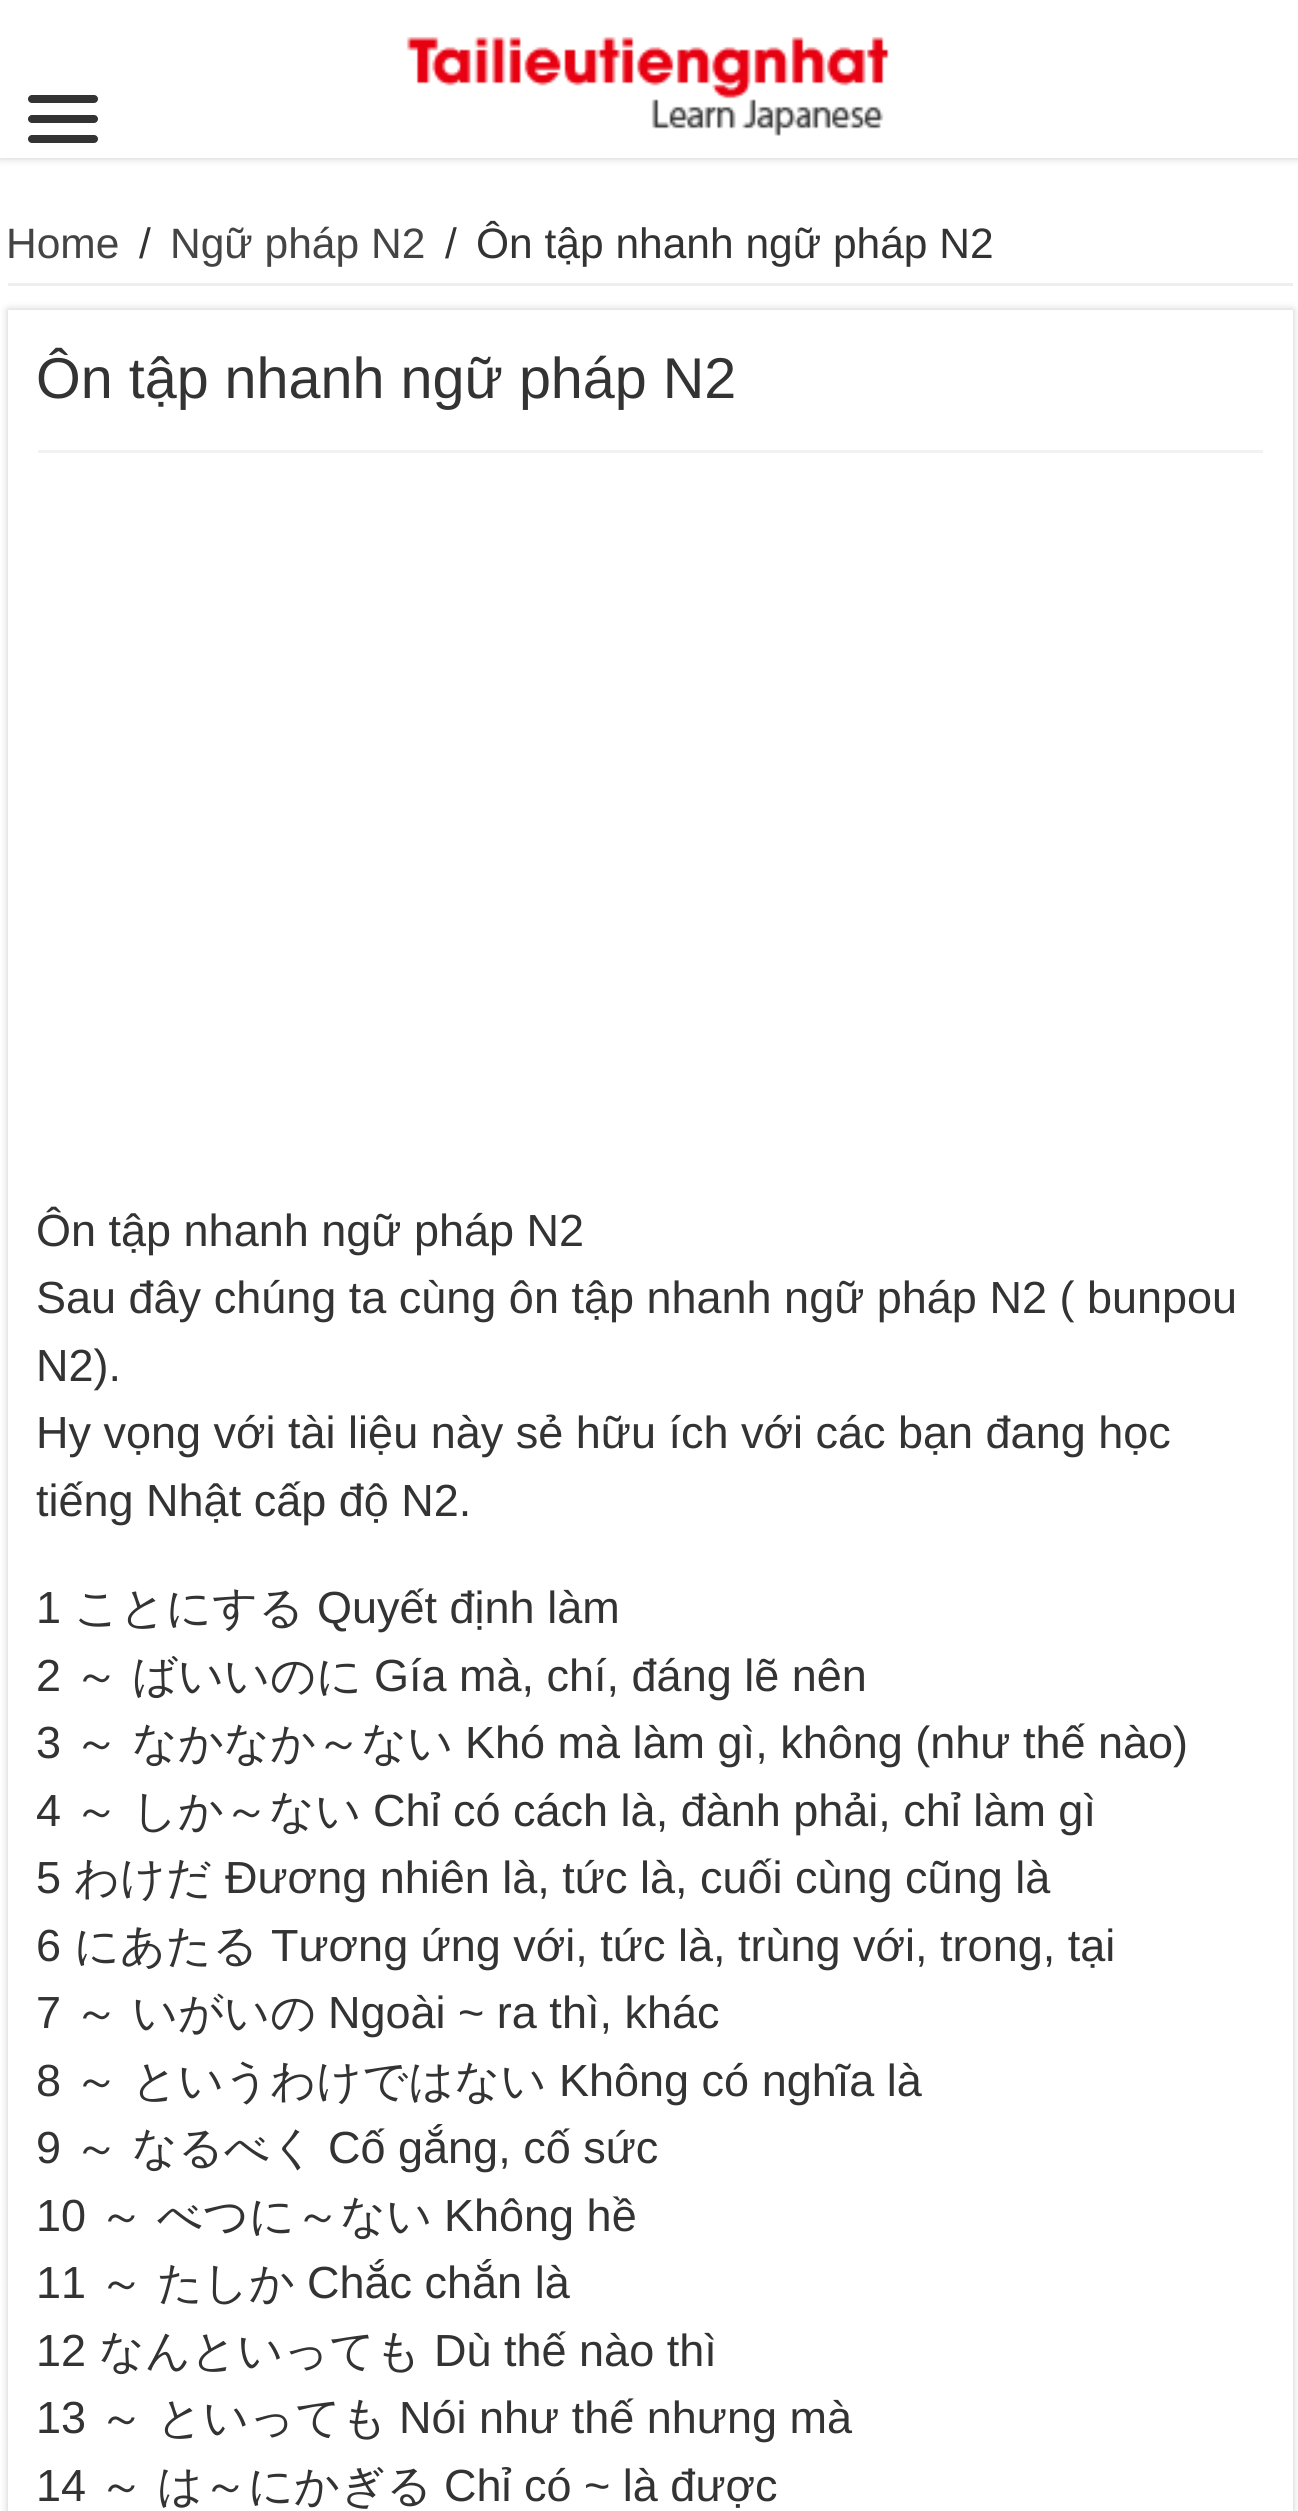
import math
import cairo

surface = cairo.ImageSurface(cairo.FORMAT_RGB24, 1298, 2511)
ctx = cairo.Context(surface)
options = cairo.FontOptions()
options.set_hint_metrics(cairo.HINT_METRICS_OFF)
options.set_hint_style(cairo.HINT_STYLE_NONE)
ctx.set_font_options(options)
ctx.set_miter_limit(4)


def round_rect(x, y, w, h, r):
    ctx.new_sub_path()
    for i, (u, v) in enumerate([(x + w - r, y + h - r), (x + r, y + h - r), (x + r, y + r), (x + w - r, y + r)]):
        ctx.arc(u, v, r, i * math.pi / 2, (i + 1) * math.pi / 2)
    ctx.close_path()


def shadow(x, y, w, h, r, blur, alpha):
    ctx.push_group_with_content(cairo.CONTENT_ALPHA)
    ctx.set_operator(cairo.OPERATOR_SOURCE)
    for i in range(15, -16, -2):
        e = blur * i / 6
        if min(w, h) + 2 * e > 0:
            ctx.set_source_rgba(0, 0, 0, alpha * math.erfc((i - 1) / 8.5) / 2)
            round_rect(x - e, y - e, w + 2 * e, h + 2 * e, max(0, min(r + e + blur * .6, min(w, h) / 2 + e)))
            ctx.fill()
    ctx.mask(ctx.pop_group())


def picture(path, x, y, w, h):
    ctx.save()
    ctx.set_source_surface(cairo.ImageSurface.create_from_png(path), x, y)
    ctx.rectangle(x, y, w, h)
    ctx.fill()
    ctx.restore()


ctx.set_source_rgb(1, 1, 1)
ctx.paint()
ctx.set_source_rgb(0.792, 0.792, 0.792)
shadow(0, 0, 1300, 158, 0, 4, 1)
ctx.set_source_rgb(1, 1, 1)
ctx.rectangle(0, 0, 1298, 158)
ctx.fill()
ctx.set_source_rgb(0.2, 0.2, 0.2)
round_rect(28, 95, 70, 8, 4)
ctx.fill()
round_rect(28, 115, 70, 8, 4)
ctx.fill()
round_rect(28, 135, 70, 8, 4)
ctx.fill()
picture("img1.png", 406, 36, 483, 100)
ctx.set_source_rgb(0.933, 0.933, 0.933)
ctx.rectangle(8, 283, 1285, 3)
ctx.fill()
ctx.select_font_face("Liberation Sans")
ctx.set_font_size(42.5)
ctx.set_source_rgb(0.267, 0.267, 0.267)
ctx.move_to(6, 258)
ctx.show_text("Home")
ctx.set_source_rgb(0.2, 0.2, 0.2)
ctx.move_to(139, 258)
ctx.show_text("/")
ctx.set_source_rgb(0.267, 0.267, 0.267)
ctx.move_to(170, 258)
ctx.show_text("Ngữ pháp N2")
ctx.set_source_rgb(0.2, 0.2, 0.2)
ctx.move_to(445, 258)
ctx.show_text("/")
ctx.move_to(476, 258)
ctx.show_text("Ôn tập nhanh ngữ pháp N2")
ctx.set_source_rgb(0.792, 0.792, 0.792)
shadow(8, 310, 1285, 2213, 0, 4, 1)
ctx.set_source_rgb(1, 1, 1)
ctx.rectangle(8, 310, 1285, 2201)
ctx.fill()
ctx.set_font_size(57.5)
ctx.set_source_rgb(0.2, 0.2, 0.2)
ctx.move_to(36, 398)
ctx.show_text("Ôn tập nhanh ngữ pháp N2")
ctx.set_source_rgb(0.949, 0.949, 0.949)
ctx.rectangle(38, 450, 1225, 3)
ctx.fill()
ctx.set_font_size(45)
ctx.set_source_rgb(0.2, 0.2, 0.2)
ctx.move_to(36, 1246)
ctx.show_text("Ôn tập nhanh ngữ pháp N2")
ctx.move_to(36, 1313)
ctx.show_text("Sau đây chúng ta cùng ôn tập nhanh ngữ pháp N2 ( bunpou")
ctx.move_to(36, 1381)
ctx.show_text("N2).")
ctx.move_to(36, 1448)
ctx.show_text("Hy vọng với tài liệu này sẻ hữu ích với các bạn đang học")
ctx.move_to(36, 1516)
ctx.show_text("tiếng Nhật cấp độ N2.")
ctx.move_to(36, 1623)
ctx.show_text("1")
ctx.select_font_face("WenQuanYi Zen Hei Medium")
ctx.move_to(74, 1623)
ctx.show_text("ことにする")
ctx.select_font_face("Liberation Sans")
ctx.move_to(317, 1623)
ctx.show_text("Quyết định làm")
ctx.move_to(36, 1691)
ctx.show_text("2")
ctx.select_font_face("WenQuanYi Zen Hei Medium")
ctx.move_to(74, 1691)
ctx.show_text("～")
ctx.move_to(132, 1691)
ctx.show_text("ばいいのに")
ctx.select_font_face("Liberation Sans")
ctx.move_to(374, 1691)
ctx.show_text("Gía mà, chí, đáng lẽ nên")
ctx.move_to(36, 1758)
ctx.show_text("3")
ctx.select_font_face("WenQuanYi Zen Hei Medium")
ctx.move_to(74, 1758)
ctx.show_text("～")
ctx.move_to(132, 1758)
ctx.show_text("なかなか～ない")
ctx.select_font_face("Liberation Sans")
ctx.move_to(465, 1758)
ctx.show_text("Khó mà làm gì, không (như thế nào)")
ctx.move_to(36, 1826)
ctx.show_text("4")
ctx.select_font_face("WenQuanYi Zen Hei Medium")
ctx.move_to(74, 1826)
ctx.show_text("～")
ctx.move_to(132, 1826)
ctx.show_text("しか～ない")
ctx.select_font_face("Liberation Sans")
ctx.move_to(373, 1826)
ctx.show_text("Chỉ có cách là, đành phải, chỉ làm gì")
ctx.move_to(36, 1893)
ctx.show_text("5")
ctx.select_font_face("WenQuanYi Zen Hei Medium")
ctx.move_to(74, 1893)
ctx.show_text("わけだ")
ctx.select_font_face("Liberation Sans")
ctx.move_to(225, 1893)
ctx.show_text("Đương nhiên là, tức là, cuối cùng cũng là")
ctx.move_to(36, 1961)
ctx.show_text("6")
ctx.select_font_face("WenQuanYi Zen Hei Medium")
ctx.move_to(74, 1961)
ctx.show_text("にあたる")
ctx.select_font_face("Liberation Sans")
ctx.move_to(271, 1961)
ctx.show_text("Tương ứng với, tức là, trùng với, trong, tại")
ctx.move_to(36, 2028)
ctx.show_text("7")
ctx.select_font_face("WenQuanYi Zen Hei Medium")
ctx.move_to(74, 2028)
ctx.show_text("～")
ctx.move_to(132, 2028)
ctx.show_text("いがいの")
ctx.select_font_face("Liberation Sans")
ctx.move_to(328, 2028)
ctx.show_text("Ngoài ~ ra thì, khác")
ctx.move_to(36, 2096)
ctx.show_text("8")
ctx.select_font_face("WenQuanYi Zen Hei Medium")
ctx.move_to(74, 2096)
ctx.show_text("～")
ctx.move_to(132, 2096)
ctx.show_text("というわけではない")
ctx.select_font_face("Liberation Sans")
ctx.move_to(559, 2096)
ctx.show_text("Không có nghĩa là")
ctx.move_to(36, 2163)
ctx.show_text("9")
ctx.select_font_face("WenQuanYi Zen Hei Medium")
ctx.move_to(74, 2163)
ctx.show_text("～")
ctx.move_to(132, 2163)
ctx.show_text("なるべく")
ctx.select_font_face("Liberation Sans")
ctx.move_to(328, 2163)
ctx.show_text("Cố gắng, cố sức")
ctx.move_to(36, 2231)
ctx.show_text("10")
ctx.select_font_face("WenQuanYi Zen Hei Medium")
ctx.move_to(99, 2231)
ctx.show_text("～")
ctx.move_to(157, 2231)
ctx.show_text("べつに～ない")
ctx.select_font_face("Liberation Sans")
ctx.move_to(444, 2231)
ctx.show_text("Không hề")
ctx.move_to(36, 2298)
ctx.show_text("11")
ctx.select_font_face("WenQuanYi Zen Hei Medium")
ctx.move_to(99, 2298)
ctx.show_text("～")
ctx.move_to(157, 2298)
ctx.show_text("たしか")
ctx.select_font_face("Liberation Sans")
ctx.move_to(307, 2298)
ctx.show_text("Chắc chắn là")
ctx.move_to(36, 2366)
ctx.show_text("12")
ctx.select_font_face("WenQuanYi Zen Hei Medium")
ctx.move_to(99, 2366)
ctx.show_text("なんといっても")
ctx.select_font_face("Liberation Sans")
ctx.move_to(434, 2366)
ctx.show_text("Dù thế nào thì")
ctx.move_to(36, 2433)
ctx.show_text("13")
ctx.select_font_face("WenQuanYi Zen Hei Medium")
ctx.move_to(99, 2433)
ctx.show_text("～")
ctx.move_to(157, 2433)
ctx.show_text("といっても")
ctx.select_font_face("Liberation Sans")
ctx.move_to(399, 2433)
ctx.show_text("Nói như thế nhưng mà")
ctx.move_to(36, 2501)
ctx.show_text("14")
ctx.select_font_face("WenQuanYi Zen Hei Medium")
ctx.move_to(99, 2501)
ctx.show_text("～")
ctx.move_to(157, 2501)
ctx.show_text("は～にかぎる")
ctx.select_font_face("Liberation Sans")
ctx.move_to(444, 2501)
ctx.show_text("Chỉ có ~ là được")
surface.write_to_png("page.png")
